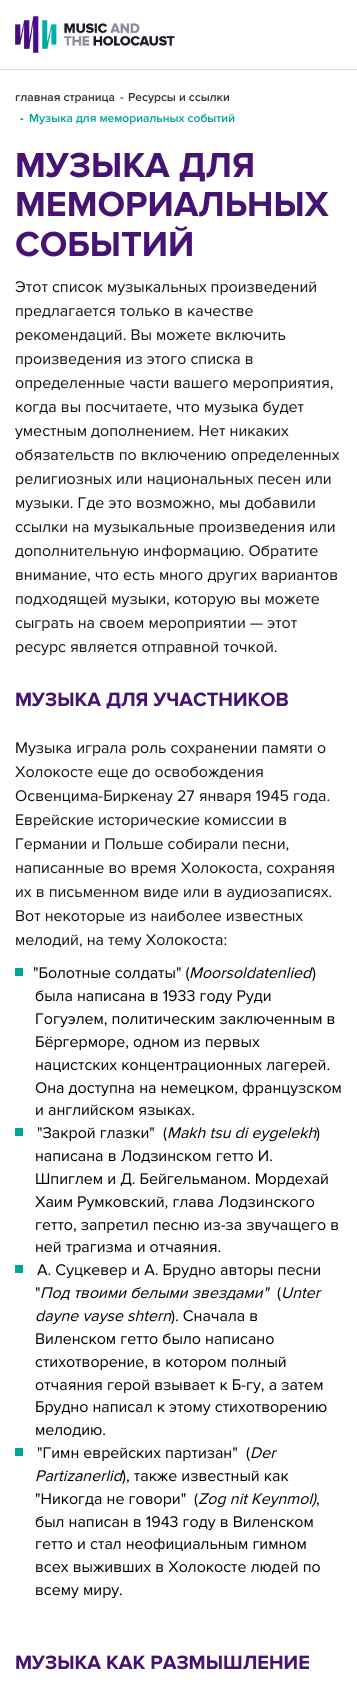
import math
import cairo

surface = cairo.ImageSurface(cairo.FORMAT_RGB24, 357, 1693)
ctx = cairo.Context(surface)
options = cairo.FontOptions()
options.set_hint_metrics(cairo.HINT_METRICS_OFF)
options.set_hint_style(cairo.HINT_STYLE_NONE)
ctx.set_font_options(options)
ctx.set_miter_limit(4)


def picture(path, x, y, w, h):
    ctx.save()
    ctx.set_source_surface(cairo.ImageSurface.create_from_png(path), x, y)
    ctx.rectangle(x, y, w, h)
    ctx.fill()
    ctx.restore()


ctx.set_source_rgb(1, 1, 1)
ctx.paint()
ctx.set_source_rgb(0.863, 0.863, 0.863)
ctx.rectangle(0, 69, 357, 1)
ctx.fill()
picture("img1.png", 15, 16, 160, 37)
ctx.select_font_face("Proxima Nova SemiBold")
ctx.set_font_size(12)
ctx.set_source_rgb(0.2, 0.2, 0.2)
ctx.move_to(15, 101)
ctx.show_text("главная страница")
ctx.move_to(120, 101)
ctx.show_text("-")
ctx.move_to(128, 101)
ctx.show_text("Ресурсы и ссылки")
ctx.move_to(20, 122)
ctx.show_text("-")
ctx.set_source_rgb(0, 0.639, 0.6)
ctx.move_to(29, 122)
ctx.show_text("Музыка для мемориальных событий")
ctx.select_font_face("Proxima Nova", cairo.FONT_SLANT_NORMAL, cairo.FONT_WEIGHT_BOLD)
ctx.set_font_size(36)
ctx.set_source_rgb(0.275, 0.078, 0.451)
ctx.move_to(15, 177)
ctx.show_text("МУЗЫКА ДЛЯ")
ctx.move_to(15, 216)
ctx.show_text("МЕМОРИАЛЬНЫХ")
ctx.move_to(15, 256)
ctx.show_text("СОБЫТИЙ")
ctx.select_font_face("Proxima Nova")
ctx.set_font_size(16)
ctx.set_source_rgb(0.067, 0.067, 0.067)
ctx.move_to(15, 292)
ctx.show_text("Этот список музыкальных произведений")
ctx.move_to(15, 316)
ctx.show_text("предлагается только в качестве")
ctx.move_to(15, 340)
ctx.show_text("рекомендаций. Вы можете включить")
ctx.move_to(15, 364)
ctx.show_text("произведения из этого списка в")
ctx.move_to(15, 388)
ctx.show_text("определенные части вашего мероприятия,")
ctx.move_to(15, 412)
ctx.show_text("когда вы посчитаете, что музыка будет")
ctx.move_to(15, 436)
ctx.show_text("уместным дополнением. Нет никаких")
ctx.move_to(15, 460)
ctx.show_text("обязательств по включению определенных")
ctx.move_to(15, 484)
ctx.show_text("религиозных или национальных песен или")
ctx.move_to(15, 508)
ctx.show_text("музыки. Где это возможно, мы добавили")
ctx.move_to(15, 532)
ctx.show_text("ссылки на музыкальные произведения или")
ctx.move_to(15, 556)
ctx.show_text("дополнительную информацию. Обратите")
ctx.move_to(15, 580)
ctx.show_text("внимание, что есть много других вариантов")
ctx.move_to(15, 604)
ctx.show_text("подходящей музыки, которую вы можете")
ctx.move_to(15, 628)
ctx.show_text("сыграть на своем мероприятии — этот")
ctx.move_to(15, 652)
ctx.show_text("ресурс является отправной точкой.")
ctx.select_font_face("Proxima Nova", cairo.FONT_SLANT_NORMAL, cairo.FONT_WEIGHT_BOLD)
ctx.set_font_size(20)
ctx.set_source_rgb(0.275, 0.078, 0.451)
ctx.move_to(15, 706)
ctx.show_text("МУЗЫКА ДЛЯ УЧАСТНИКОВ")
ctx.select_font_face("Proxima Nova")
ctx.set_font_size(16)
ctx.set_source_rgb(0.067, 0.067, 0.067)
ctx.move_to(15, 753)
ctx.show_text("Музыка играла роль сохранении памяти о")
ctx.move_to(15, 777)
ctx.show_text("Холокосте еще до освобождения")
ctx.move_to(15, 801)
ctx.show_text("Освенцима-Биркенау 27 января 1945 года.")
ctx.move_to(15, 825)
ctx.show_text("Еврейские исторические комиссии в")
ctx.move_to(15, 849)
ctx.show_text("Германии и Польше собирали песни,")
ctx.move_to(15, 873)
ctx.show_text("написанные во время Холокоста, сохраняя")
ctx.move_to(15, 897)
ctx.show_text("их в письменном виде или в аудиозаписях.")
ctx.move_to(15, 921)
ctx.show_text("Вот некоторые из наиболее известных")
ctx.move_to(15, 945)
ctx.show_text("мелодий, на тему Холокоста:")
ctx.set_source_rgb(0, 0, 0)
ctx.move_to(33, 978)
ctx.show_text("\"Болотные солдаты\" (")
ctx.select_font_face("Proxima Nova", cairo.FONT_SLANT_ITALIC)
ctx.move_to(189, 978)
ctx.show_text("Moorsoldatenlied")
ctx.set_source_rgb(0, 0.639, 0.6)
ctx.rectangle(15, 968, 8, 8)
ctx.fill()
ctx.select_font_face("Proxima Nova")
ctx.set_source_rgb(0, 0, 0)
ctx.move_to(312, 978)
ctx.show_text(")")
ctx.move_to(35, 1001)
ctx.show_text("была написана в 1933 году Руди")
ctx.move_to(35, 1024)
ctx.show_text("Гогуэлем, политическим заключенным в")
ctx.move_to(35, 1047)
ctx.show_text("Бёргерморе, одном из первых")
ctx.move_to(35, 1070)
ctx.show_text("нацистских концентрационных лагерей.")
ctx.move_to(35, 1093)
ctx.show_text("Она доступна на немецком, французском")
ctx.move_to(35, 1115)
ctx.show_text("и английском языках.")
ctx.set_source_rgb(0, 0.639, 0.6)
ctx.rectangle(15, 1128, 8, 8)
ctx.fill()
ctx.set_source_rgb(0, 0, 0)
ctx.move_to(37, 1138)
ctx.show_text("\"Закрой глазки\"")
ctx.move_to(163, 1138)
ctx.show_text("(")
ctx.select_font_face("Proxima Nova", cairo.FONT_SLANT_ITALIC)
ctx.move_to(167, 1138)
ctx.show_text("Makh tsu di eygelekh")
ctx.select_font_face("Proxima Nova")
ctx.move_to(316, 1138)
ctx.show_text(")")
ctx.move_to(35, 1161)
ctx.show_text("написана в Лодзинском гетто И.")
ctx.move_to(35, 1184)
ctx.show_text("Шпиглем и Д. Бейгельманом. Мордехай")
ctx.move_to(35, 1207)
ctx.show_text("Хаим Румковский, глава Лодзинского")
ctx.move_to(35, 1230)
ctx.show_text("гетто, запретил песню из-за звучащего в")
ctx.move_to(35, 1252)
ctx.show_text("ней трагизма и отчаяния.")
ctx.set_source_rgb(0, 0.639, 0.6)
ctx.rectangle(15, 1265, 8, 8)
ctx.fill()
ctx.set_source_rgb(0, 0, 0)
ctx.move_to(37, 1275)
ctx.show_text("А. Суцкевер и А. Брудно авторы песни")
ctx.move_to(35, 1298)
ctx.show_text("\"")
ctx.select_font_face("Proxima Nova", cairo.FONT_SLANT_ITALIC)
ctx.move_to(40, 1298)
ctx.show_text("Под твоими белыми звездами\"")
ctx.select_font_face("Proxima Nova")
ctx.move_to(277, 1298)
ctx.show_text("(")
ctx.select_font_face("Proxima Nova", cairo.FONT_SLANT_ITALIC)
ctx.move_to(281, 1298)
ctx.show_text("Unter")
ctx.move_to(35, 1321)
ctx.show_text("dayne vayse shtern")
ctx.select_font_face("Proxima Nova")
ctx.move_to(171, 1321)
ctx.show_text("). Сначала в")
ctx.move_to(35, 1344)
ctx.show_text("Виленском гетто было написано")
ctx.move_to(35, 1367)
ctx.show_text("стихотворение, в котором полный")
ctx.move_to(35, 1390)
ctx.show_text("отчаяния герой взывает к Б-гу, а затем")
ctx.move_to(35, 1412)
ctx.show_text("Брудно написал к этому стихотворению")
ctx.move_to(35, 1435)
ctx.show_text("мелодию.")
ctx.set_source_rgb(0, 0.639, 0.6)
ctx.rectangle(15, 1448, 8, 8)
ctx.fill()
ctx.set_source_rgb(0, 0, 0)
ctx.move_to(37, 1458)
ctx.show_text("\"Гимн еврейских партизан\"  (")
ctx.select_font_face("Proxima Nova", cairo.FONT_SLANT_ITALIC)
ctx.move_to(250, 1458)
ctx.show_text("Der")
ctx.move_to(35, 1481)
ctx.show_text("Partizanerlid")
ctx.select_font_face("Proxima Nova")
ctx.move_to(122, 1481)
ctx.show_text("), также известный как")
ctx.move_to(35, 1504)
ctx.show_text("\"Никогда не говори\"")
ctx.move_to(194, 1504)
ctx.show_text("(")
ctx.select_font_face("Proxima Nova", cairo.FONT_SLANT_ITALIC)
ctx.move_to(198, 1504)
ctx.show_text("Zog nit Keynmol)")
ctx.select_font_face("Proxima Nova")
ctx.move_to(316, 1504)
ctx.show_text(",")
ctx.move_to(35, 1527)
ctx.show_text("был написан в 1943 году в Виленском")
ctx.move_to(35, 1549)
ctx.show_text("гетто и стал неофициальным гимном")
ctx.move_to(35, 1572)
ctx.show_text("всех выживших в Холокосте людей по")
ctx.move_to(35, 1595)
ctx.show_text("всему миру.")
ctx.select_font_face("Proxima Nova", cairo.FONT_SLANT_NORMAL, cairo.FONT_WEIGHT_BOLD)
ctx.set_font_size(20)
ctx.set_source_rgb(0.275, 0.078, 0.451)
ctx.move_to(15, 1669)
ctx.show_text("МУЗЫКА КАК РАЗМЫШЛЕНИЕ")
surface.write_to_png("page.png")
